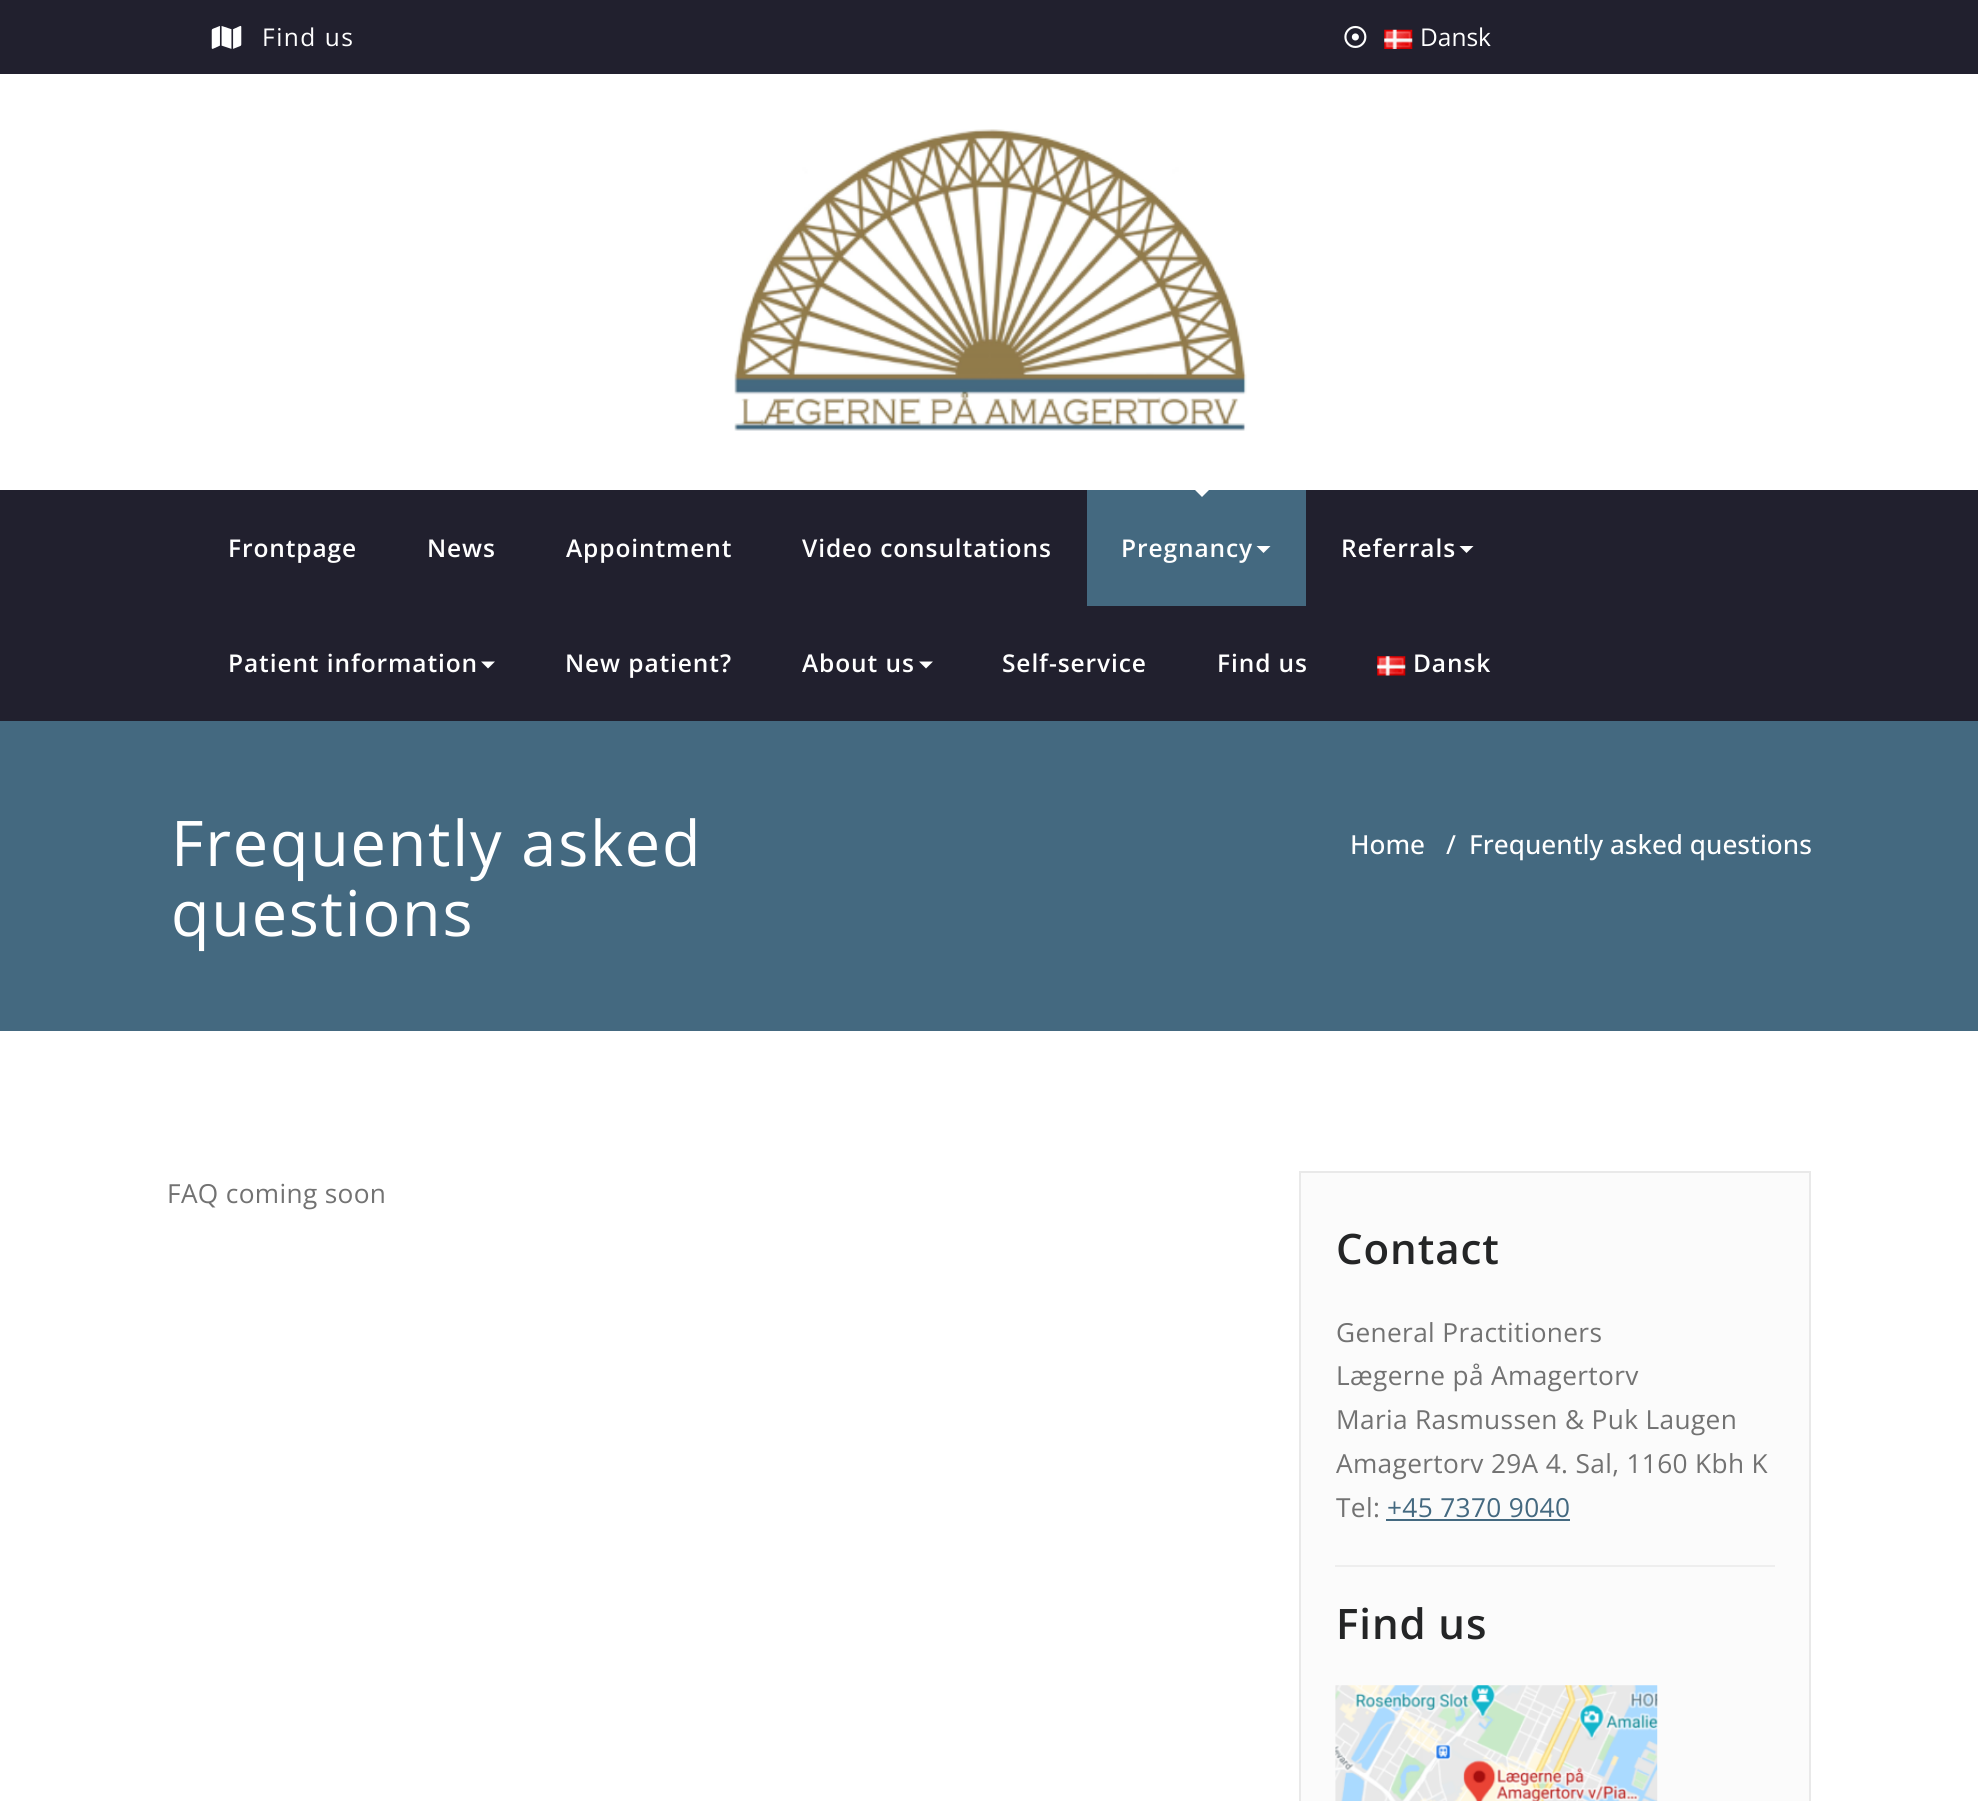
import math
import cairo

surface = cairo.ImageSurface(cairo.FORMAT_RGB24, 1978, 1801)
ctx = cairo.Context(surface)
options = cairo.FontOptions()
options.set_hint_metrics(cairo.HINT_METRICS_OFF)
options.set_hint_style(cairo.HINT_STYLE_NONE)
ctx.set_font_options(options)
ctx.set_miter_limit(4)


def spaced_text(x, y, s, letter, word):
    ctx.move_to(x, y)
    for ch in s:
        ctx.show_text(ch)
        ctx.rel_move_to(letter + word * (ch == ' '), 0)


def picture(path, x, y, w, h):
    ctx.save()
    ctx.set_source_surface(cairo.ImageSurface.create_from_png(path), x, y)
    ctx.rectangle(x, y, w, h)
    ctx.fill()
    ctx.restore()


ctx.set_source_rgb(1, 1, 1)
ctx.paint()
ctx.set_source_rgb(0.129, 0.125, 0.18)
ctx.rectangle(0, 0, 1978, 74)
ctx.fill()
picture("img1.png", 211, 25, 31, 24)
ctx.select_font_face("Open Sans")
ctx.set_font_size(24.5)
ctx.set_source_rgb(1, 1, 1)
spaced_text(262, 46, "Find us", 1.5, 0)
picture("img2.png", 1344, 25, 23, 23)
picture("img3.png", 1384, 29, 29, 20)
ctx.move_to(1420, 46)
ctx.show_text("Dansk")
picture("img4.png", 734, 129, 513, 302)
ctx.set_source_rgb(0.129, 0.125, 0.18)
ctx.rectangle(0, 490, 1978, 231)
ctx.fill()
ctx.select_font_face("Open Sans SemiBold")
ctx.set_source_rgb(1, 1, 1)
spaced_text(228, 557, "Frontpage", 0.9, 0)
spaced_text(427, 557, "News", 0.9, 0)
spaced_text(566, 557, "Appointment", 0.9, 0)
spaced_text(802, 557, "Video consultations", 0.9, 0)
ctx.set_source_rgb(0.267, 0.412, 0.502)
ctx.rectangle(1087, 490, 219, 116)
ctx.fill()
ctx.set_source_rgb(1, 1, 1)
ctx.new_path()
ctx.move_to(1195, 490)
ctx.line_to(1209, 490)
ctx.line_to(1202, 497)
ctx.close_path()
ctx.fill()
spaced_text(1121, 557, "Pregnancy", 0.9, 0)
ctx.new_path()
ctx.move_to(1256.5, 546)
ctx.line_to(1270.5, 546)
ctx.line_to(1263.5, 553)
ctx.close_path()
ctx.fill()
spaced_text(1341, 557, "Referrals", 0.9, 0)
ctx.new_path()
ctx.move_to(1459.5, 546)
ctx.line_to(1473.5, 546)
ctx.line_to(1466.5, 553)
ctx.close_path()
ctx.fill()
spaced_text(228, 672, "Patient information", 0.9, 0)
ctx.new_path()
ctx.move_to(481, 661.5)
ctx.line_to(495, 661.5)
ctx.line_to(488, 668.5)
ctx.close_path()
ctx.fill()
spaced_text(565, 672, "New patient?", 0.9, 0)
spaced_text(802, 672, "About us", 0.9, 0)
ctx.new_path()
ctx.move_to(919, 661.5)
ctx.line_to(933, 661.5)
ctx.line_to(926, 668.5)
ctx.close_path()
ctx.fill()
spaced_text(1002, 672, "Self-service", 0.9, 0)
spaced_text(1217, 672, "Find us", 0.9, 0)
picture("img5.png", 1377, 656, 29, 20)
spaced_text(1413, 672, "Dansk", 0.9, 0)
ctx.set_source_rgb(0.267, 0.412, 0.502)
ctx.rectangle(0, 721, 1978, 310)
ctx.fill()
ctx.select_font_face("Open Sans")
ctx.set_font_size(63)
ctx.set_source_rgb(1, 1, 1)
spaced_text(171, 866, "Frequently asked", 1.75, 0)
spaced_text(171, 936, "questions", 1.75, 0)
ctx.select_font_face("Open Sans Medium")
ctx.set_font_size(26.25)
ctx.move_to(1350, 854)
ctx.show_text("Home")
ctx.move_to(1446, 854)
ctx.show_text("/")
ctx.move_to(1469, 854)
ctx.show_text("Frequently asked questions")
ctx.select_font_face("Open Sans")
ctx.set_source_rgb(0.447, 0.447, 0.447)
spaced_text(167, 1203, "FAQ coming soon", 0.35, 0)
ctx.set_source_rgb(0.984, 0.984, 0.984)
ctx.rectangle(1300, 1172, 510, 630)
ctx.fill_preserve()
ctx.set_source_rgb(0.914, 0.914, 0.914)
ctx.stroke()
ctx.select_font_face("Open Sans SemiBold")
ctx.set_font_size(42)
ctx.set_source_rgb(0.141, 0.145, 0.149)
spaced_text(1336, 1264, "Contact", 0.9, 0)
ctx.select_font_face("Open Sans")
ctx.set_font_size(26.25)
ctx.set_source_rgb(0.447, 0.447, 0.447)
spaced_text(1336, 1342, "General Practitioners", 0.35, 0)
spaced_text(1336, 1385, "Lægerne på Amagertorv", 0.35, 0)
spaced_text(1336, 1429, "Maria Rasmussen & Puk Laugen", 0.35, 0)
spaced_text(1336, 1473, "Amagertorv 29A 4. Sal, 1160 Kbh K", 0.35, 0)
spaced_text(1336, 1517, "Tel:", 0.35, 0)
ctx.set_source_rgb(0.267, 0.412, 0.502)
spaced_text(1387, 1517, "+45 7370 9040", 0.35, 0)
ctx.rectangle(1386, 1519, 184, 2)
ctx.fill()
ctx.set_source_rgb(0.933, 0.933, 0.933)
ctx.rectangle(1335, 1565, 440, 2)
ctx.fill()
ctx.select_font_face("Open Sans SemiBold")
ctx.set_font_size(42)
ctx.set_source_rgb(0.141, 0.145, 0.149)
spaced_text(1336, 1639, "Find us", 0.9, 0)
picture("img6.png", 1335, 1685, 323, 116)
surface.write_to_png("page.png")
